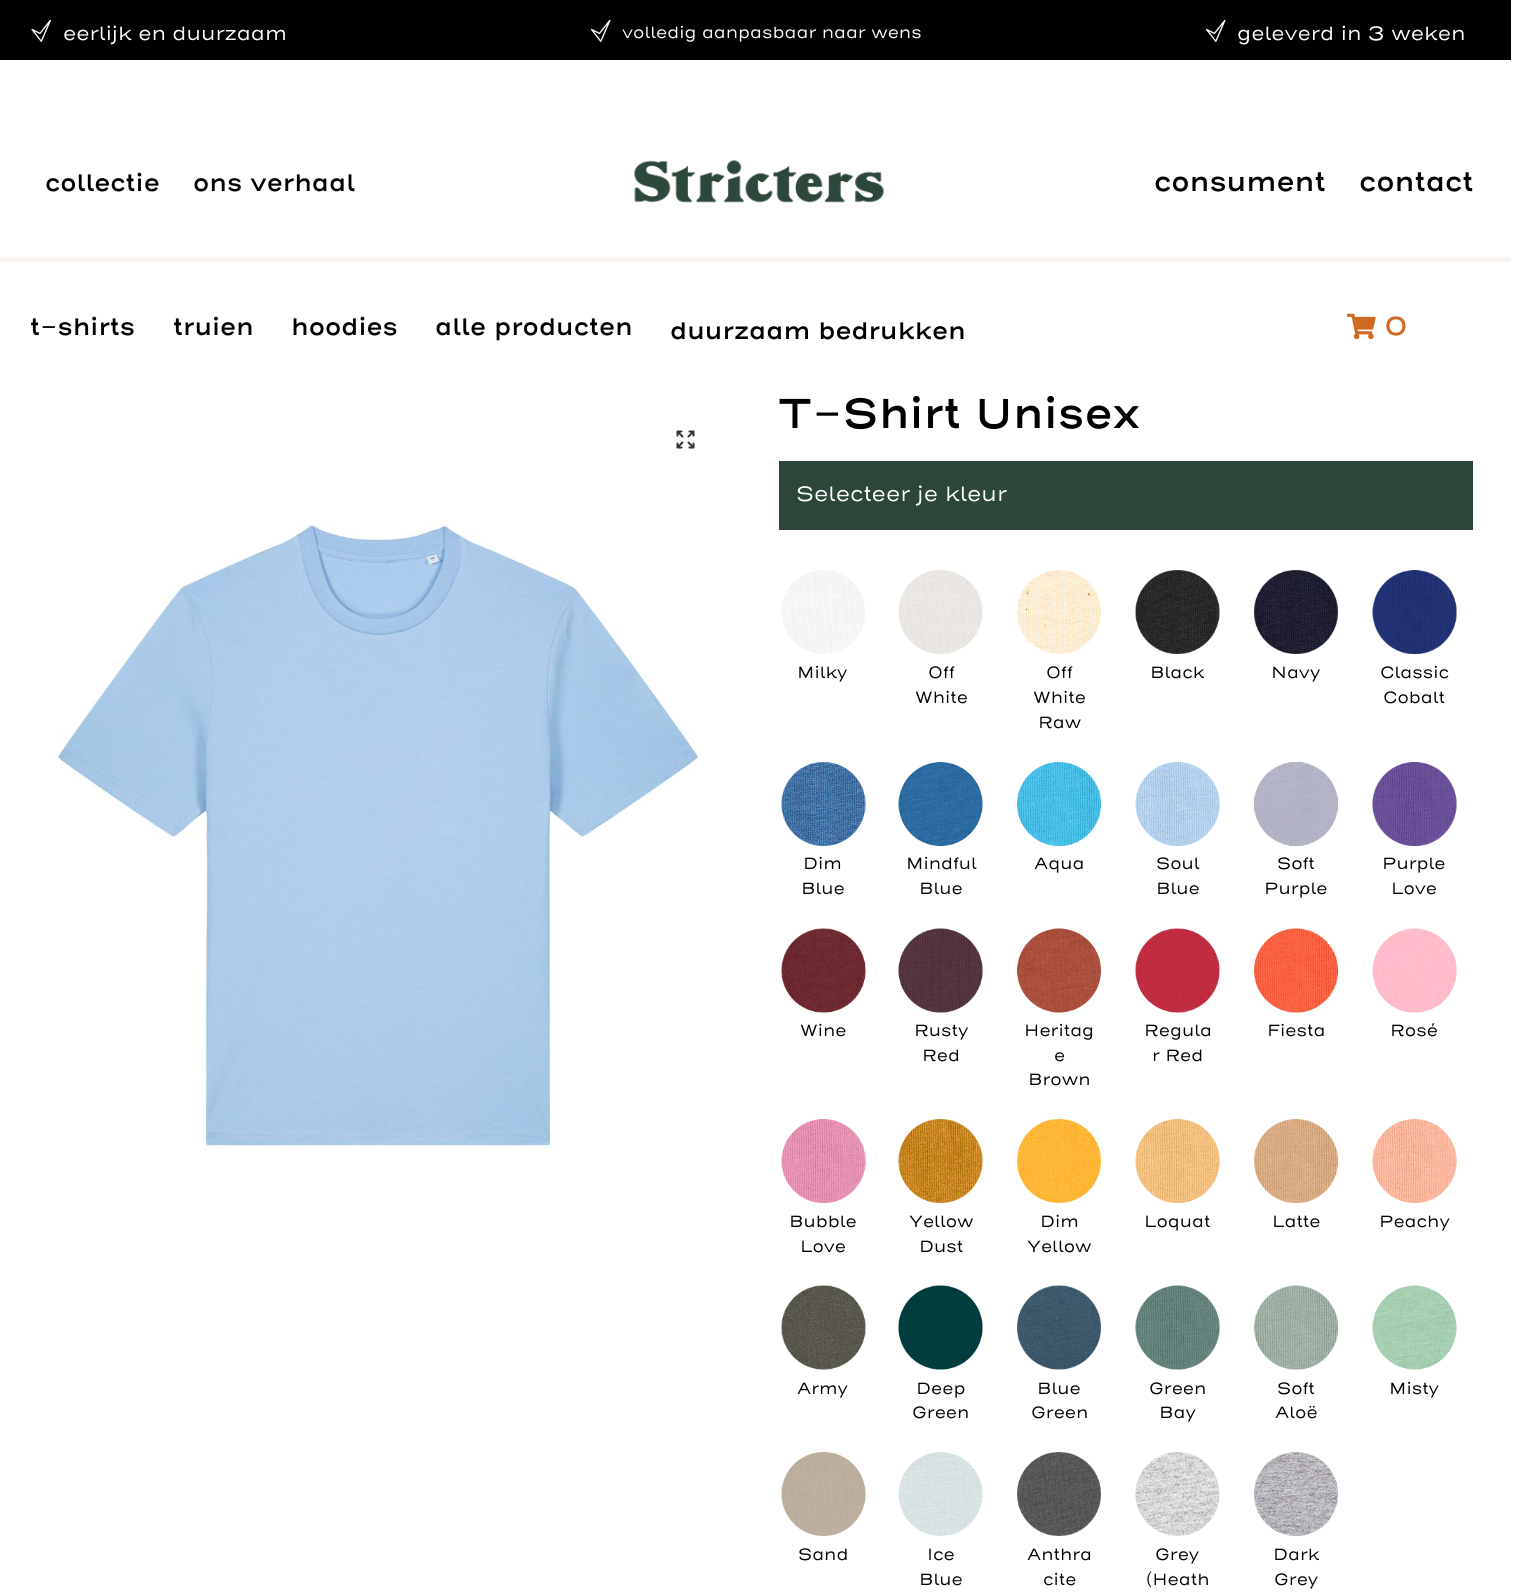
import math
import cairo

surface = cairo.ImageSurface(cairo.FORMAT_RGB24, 1532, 1595)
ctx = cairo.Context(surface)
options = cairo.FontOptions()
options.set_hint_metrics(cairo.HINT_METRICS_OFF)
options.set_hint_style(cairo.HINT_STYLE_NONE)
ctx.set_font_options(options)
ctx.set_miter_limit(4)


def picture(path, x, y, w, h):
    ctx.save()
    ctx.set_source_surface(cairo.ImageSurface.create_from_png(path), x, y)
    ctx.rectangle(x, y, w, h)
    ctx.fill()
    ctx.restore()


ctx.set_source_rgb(1, 1, 1)
ctx.paint()
ctx.set_source_rgb(0, 0, 0)
ctx.rectangle(0, 0, 1511, 60)
ctx.fill()
picture("img1.png", 31, 20, 20, 22)
ctx.select_font_face("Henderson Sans")
ctx.set_font_size(19.5)
ctx.set_source_rgb(1, 1, 1)
ctx.move_to(63, 40)
ctx.show_text("eerlijk en duurzaam")
picture("img2.png", 591, 20, 20, 22)
ctx.set_font_size(16.5)
ctx.move_to(622, 38)
ctx.show_text("volledig aanpasbaar naar wens")
picture("img2.png", 1206, 20, 20, 22)
ctx.set_font_size(19.5)
ctx.move_to(1237, 40)
ctx.show_text("geleverd in 3 weken")
ctx.set_source_rgb(0.965, 0.957, 0.949)
ctx.rectangle(0, 257, 1511, 5)
ctx.fill()
ctx.select_font_face("Henderson Sans SemiBold")
ctx.set_font_size(24)
ctx.set_source_rgb(0, 0, 0)
ctx.move_to(45, 191)
ctx.show_text("collectie")
ctx.move_to(193, 191)
ctx.show_text("ons verhaal")
picture("img3.png", 634, 160, 250, 43)
ctx.set_font_size(27)
ctx.move_to(1154, 191)
ctx.show_text("consument")
ctx.move_to(1359, 191)
ctx.show_text("contact")
ctx.set_font_size(24)
ctx.move_to(30, 335)
ctx.show_text("t-shirts")
ctx.move_to(173, 335)
ctx.show_text("truien")
ctx.move_to(291, 335)
ctx.show_text("hoodies")
ctx.move_to(435, 335)
ctx.show_text("alle producten")
ctx.move_to(670, 339)
ctx.show_text("duurzaam bedrukken")
picture("img4.png", 1347, 313, 29, 27)
ctx.set_font_size(26)
ctx.set_source_rgb(0.816, 0.416, 0.133)
ctx.move_to(1384, 335)
ctx.show_text("0")
picture("img5.png", 676, 430, 19, 19)
picture("img6.png", 51, 524, 654, 625)
ctx.set_font_size(42)
ctx.set_source_rgb(0, 0, 0)
ctx.move_to(778, 428)
ctx.show_text("T-Shirt Unisex")
ctx.set_source_rgb(0.173, 0.278, 0.227)
ctx.rectangle(779, 461, 694, 69)
ctx.fill()
ctx.select_font_face("Henderson Sans")
ctx.set_font_size(21)
ctx.set_source_rgb(1, 1, 1)
ctx.move_to(796, 501)
ctx.show_text("Selecteer je kleur")
picture("img7.png", 781, 570, 84, 84)
ctx.set_font_size(16.5)
ctx.set_source_rgb(0, 0, 0)
ctx.move_to(797, 678)
ctx.show_text("Milky")
picture("img8.png", 898, 570, 85, 84)
ctx.move_to(928, 678)
ctx.show_text("Off")
ctx.move_to(915, 703)
ctx.show_text("White")
picture("img9.png", 1017, 570, 84, 84)
ctx.move_to(1046, 678)
ctx.show_text("Off")
ctx.move_to(1033, 703)
ctx.show_text("White")
ctx.move_to(1038, 728)
ctx.show_text("Raw")
picture("img10.png", 1135, 570, 85, 84)
ctx.move_to(1150, 678)
ctx.show_text("Black")
picture("img11.png", 1254, 570, 84, 84)
ctx.move_to(1271, 678)
ctx.show_text("Navy")
picture("img12.png", 1372, 570, 85, 84)
ctx.move_to(1380, 678)
ctx.show_text("Classic")
ctx.move_to(1383, 703)
ctx.show_text("Cobalt")
picture("img13.png", 781, 762, 85, 84)
ctx.move_to(803, 869)
ctx.show_text("Dim")
ctx.move_to(801, 894)
ctx.show_text("Blue")
picture("img14.png", 898, 762, 85, 84)
ctx.move_to(906, 869)
ctx.show_text("Mindful")
ctx.move_to(919, 894)
ctx.show_text("Blue")
picture("img15.png", 1017, 762, 84, 84)
ctx.move_to(1034, 869)
ctx.show_text("Aqua")
picture("img16.png", 1135, 762, 85, 84)
ctx.move_to(1156, 869)
ctx.show_text("Soul")
ctx.move_to(1156, 894)
ctx.show_text("Blue")
picture("img17.png", 1254, 762, 84, 84)
ctx.move_to(1277, 869)
ctx.show_text("Soft")
ctx.move_to(1264, 894)
ctx.show_text("Purple")
picture("img18.png", 1372, 762, 85, 84)
ctx.move_to(1382, 869)
ctx.show_text("Purple")
ctx.move_to(1391, 894)
ctx.show_text("Love")
picture("img19.png", 781, 928, 85, 85)
ctx.move_to(800, 1036)
ctx.show_text("Wine")
picture("img20.png", 898, 928, 85, 85)
ctx.move_to(914, 1036)
ctx.show_text("Rusty")
ctx.move_to(922, 1061)
ctx.show_text("Red")
picture("img21.png", 1017, 928, 84, 85)
ctx.move_to(1024, 1036)
ctx.show_text("Heritag")
ctx.move_to(1054, 1061)
ctx.show_text("e")
ctx.move_to(1028, 1085)
ctx.show_text("Brown")
picture("img22.png", 1135, 928, 85, 85)
ctx.move_to(1144, 1036)
ctx.show_text("Regula")
ctx.move_to(1152, 1061)
ctx.show_text("r Red")
picture("img23.png", 1254, 928, 84, 85)
ctx.move_to(1267, 1036)
ctx.show_text("Fiesta")
picture("img24.png", 1372, 928, 85, 85)
ctx.move_to(1390, 1036)
ctx.show_text("Rosé")
picture("img25.png", 781, 1119, 85, 84)
ctx.move_to(789, 1227)
ctx.show_text("Bubble")
ctx.move_to(800, 1252)
ctx.show_text("Love")
picture("img26.png", 898, 1119, 85, 84)
ctx.move_to(909, 1227)
ctx.show_text("Yellow")
ctx.move_to(919, 1252)
ctx.show_text("Dust")
picture("img27.png", 1017, 1119, 84, 84)
ctx.move_to(1040, 1227)
ctx.show_text("Dim")
ctx.move_to(1027, 1252)
ctx.show_text("Yellow")
picture("img28.png", 1135, 1119, 85, 84)
ctx.move_to(1144, 1227)
ctx.show_text("Loquat")
picture("img29.png", 1254, 1119, 84, 84)
ctx.move_to(1272, 1227)
ctx.show_text("Latte")
picture("img30.png", 1372, 1119, 85, 84)
ctx.move_to(1379, 1227)
ctx.show_text("Peachy")
picture("img31.png", 781, 1285, 85, 85)
ctx.move_to(797, 1394)
ctx.show_text("Army")
picture("img32.png", 898, 1285, 85, 85)
ctx.move_to(916, 1394)
ctx.show_text("Deep")
ctx.move_to(912, 1418)
ctx.show_text("Green")
picture("img33.png", 1017, 1285, 84, 85)
ctx.move_to(1037, 1394)
ctx.show_text("Blue")
ctx.move_to(1031, 1418)
ctx.show_text("Green")
picture("img34.png", 1135, 1285, 85, 85)
ctx.move_to(1149, 1394)
ctx.show_text("Green")
ctx.move_to(1159, 1418)
ctx.show_text("Bay")
picture("img35.png", 1254, 1285, 84, 85)
ctx.move_to(1277, 1394)
ctx.show_text("Soft")
ctx.move_to(1275, 1418)
ctx.show_text("Aloë")
picture("img36.png", 1372, 1285, 85, 85)
ctx.move_to(1389, 1394)
ctx.show_text("Misty")
picture("img37.png", 781, 1452, 85, 84)
ctx.move_to(798, 1560)
ctx.show_text("Sand")
picture("img38.png", 898, 1452, 85, 84)
ctx.move_to(927, 1560)
ctx.show_text("Ice")
ctx.move_to(919, 1585)
ctx.show_text("Blue")
picture("img39.png", 1017, 1452, 84, 84)
ctx.move_to(1027, 1560)
ctx.show_text("Anthra")
ctx.move_to(1043, 1585)
ctx.show_text("cite")
picture("img40.png", 1135, 1452, 85, 84)
ctx.move_to(1155, 1560)
ctx.show_text("Grey")
ctx.move_to(1146, 1585)
ctx.show_text("(Heath")
picture("img41.png", 1254, 1452, 84, 84)
ctx.move_to(1273, 1560)
ctx.show_text("Dark")
ctx.move_to(1274, 1585)
ctx.show_text("Grey")
surface.write_to_png("page.png")
